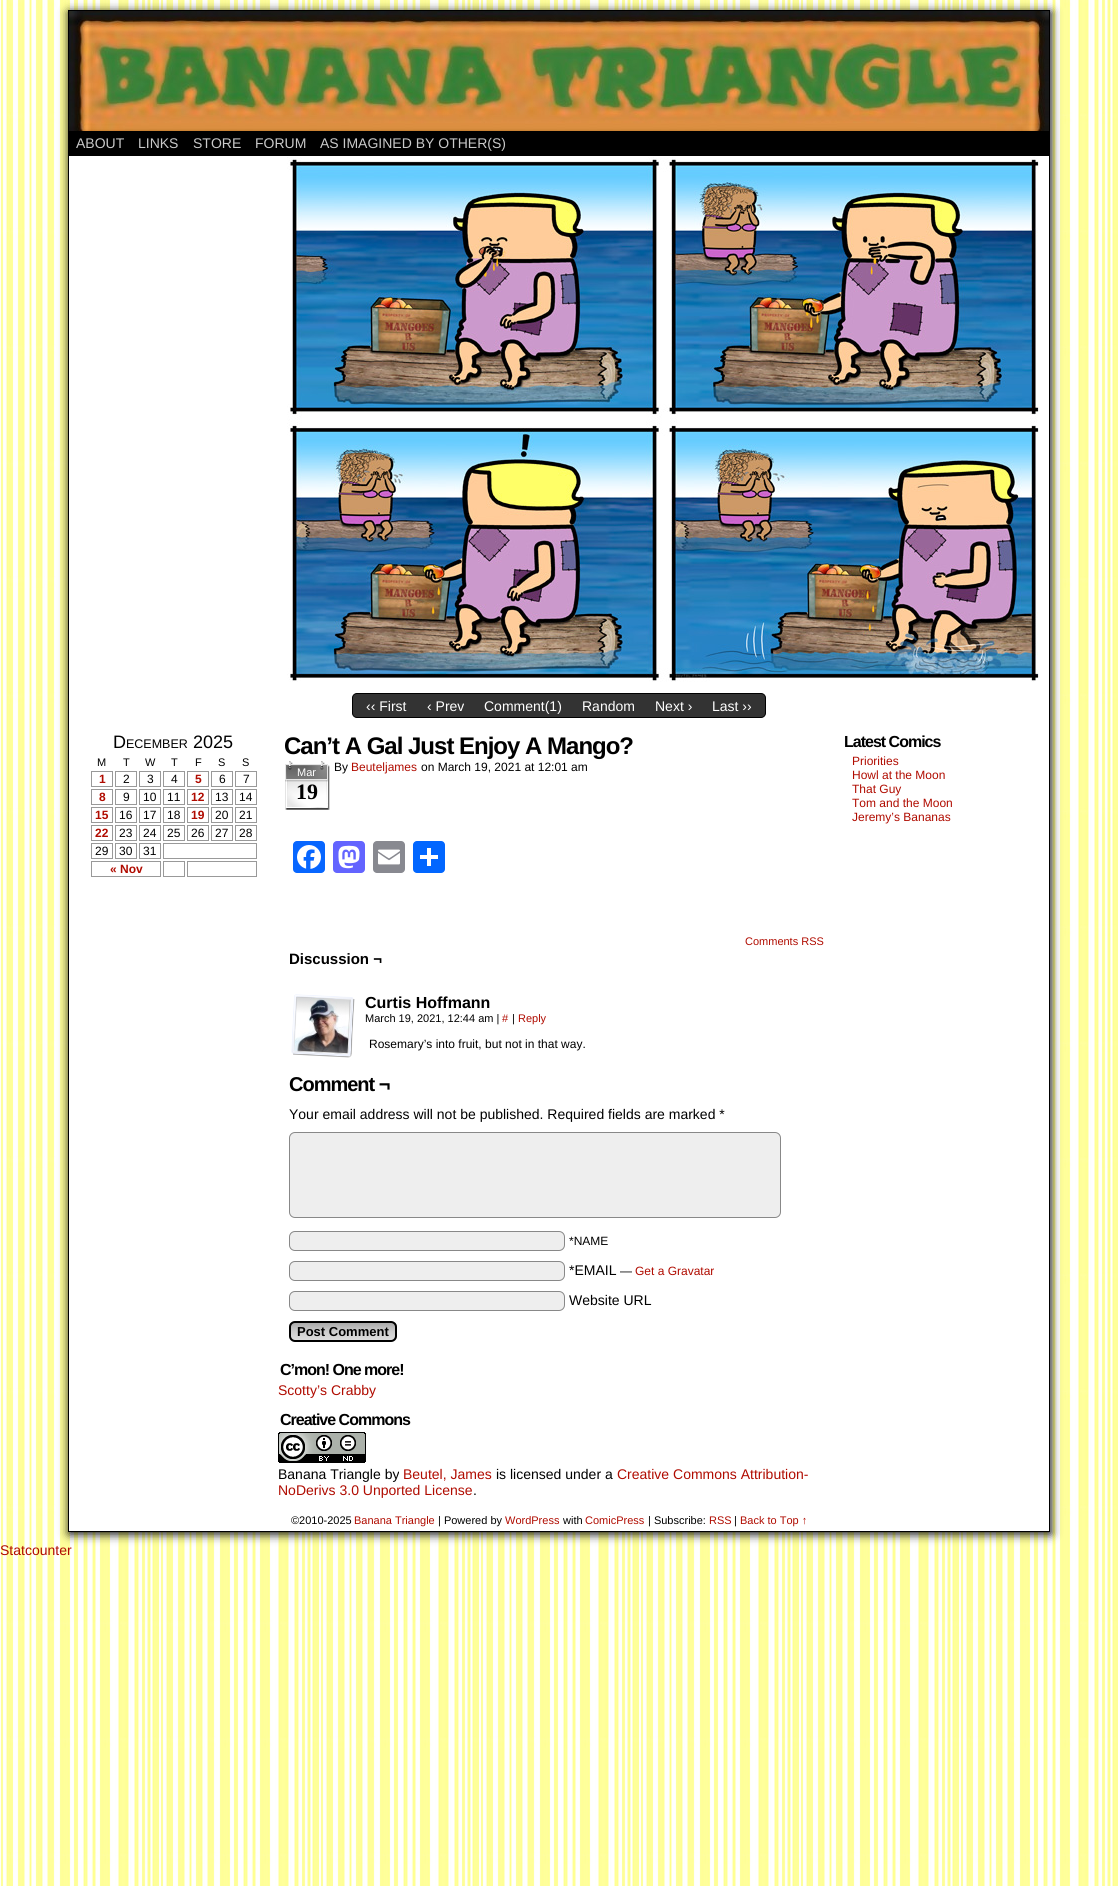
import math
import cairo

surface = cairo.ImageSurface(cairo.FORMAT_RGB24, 1118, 1886)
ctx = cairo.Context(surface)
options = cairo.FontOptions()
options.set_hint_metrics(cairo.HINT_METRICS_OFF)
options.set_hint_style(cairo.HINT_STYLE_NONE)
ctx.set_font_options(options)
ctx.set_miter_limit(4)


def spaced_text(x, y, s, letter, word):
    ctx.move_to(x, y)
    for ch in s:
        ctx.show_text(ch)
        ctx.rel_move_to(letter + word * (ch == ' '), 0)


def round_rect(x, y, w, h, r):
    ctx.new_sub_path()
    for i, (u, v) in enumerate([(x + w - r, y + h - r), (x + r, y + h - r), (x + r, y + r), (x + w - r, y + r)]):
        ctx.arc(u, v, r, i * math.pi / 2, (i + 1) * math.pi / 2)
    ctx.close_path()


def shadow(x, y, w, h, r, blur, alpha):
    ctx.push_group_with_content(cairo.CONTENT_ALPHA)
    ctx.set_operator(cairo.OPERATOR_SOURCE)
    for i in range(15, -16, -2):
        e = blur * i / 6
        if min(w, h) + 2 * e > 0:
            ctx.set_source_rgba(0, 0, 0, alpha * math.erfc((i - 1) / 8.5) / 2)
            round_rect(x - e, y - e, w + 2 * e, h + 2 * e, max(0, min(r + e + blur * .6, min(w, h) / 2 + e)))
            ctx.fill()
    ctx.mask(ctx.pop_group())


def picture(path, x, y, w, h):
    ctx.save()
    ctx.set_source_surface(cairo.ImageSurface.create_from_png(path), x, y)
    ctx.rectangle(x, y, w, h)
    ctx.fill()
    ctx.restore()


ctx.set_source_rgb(1, 1, 1)
ctx.paint()
picture("img1.png", 0, 0, 1118, 1886)
ctx.set_source_rgb(0, 0, 0)
shadow(69, 12, 982, 1522, 0, 5, 1)
ctx.set_source_rgb(1, 1, 1)
ctx.rectangle(69, 156, 980, 1375)
ctx.fill()
ctx.rectangle(68.5, 10.5, 981, 1521)
ctx.set_source_rgb(0, 0, 0)
ctx.set_line_width(1)
ctx.stroke()
picture("img2.png", 69, 11, 980, 120)
ctx.rectangle(69, 131, 980, 25)
ctx.fill()
ctx.select_font_face("Liberation Sans")
ctx.set_font_size(14)
ctx.set_source_rgb(0.788, 0.788, 0.788)
ctx.move_to(76, 148)
ctx.show_text("ABOUT")
ctx.move_to(138, 148)
ctx.show_text("LINKS")
ctx.move_to(193, 148)
ctx.show_text("STORE")
ctx.move_to(255, 148)
ctx.show_text("FORUM")
ctx.move_to(320, 148)
ctx.show_text("AS IMAGINED BY OTHER(S)")
picture("img3.png", 287, 157, 752, 525)
ctx.set_source_rgb(0.2, 0.2, 0.2)
round_rect(352.5, 693.5, 413, 24, 4.5)
ctx.fill_preserve()
ctx.set_source_rgb(0, 0, 0)
ctx.stroke()
ctx.set_source_rgb(1, 1, 1)
ctx.move_to(366, 711)
ctx.show_text("‹‹ First")
ctx.move_to(427, 711)
ctx.show_text("‹ Prev")
ctx.move_to(484, 711)
ctx.show_text("Comment(1)")
ctx.move_to(582, 711)
ctx.show_text("Random")
ctx.move_to(655, 711)
ctx.show_text("Next ›")
ctx.move_to(712, 711)
ctx.show_text("Last ››")
ctx.set_font_size(18)
ctx.set_source_rgb(0, 0, 0)
ctx.move_to(113, 748)
ctx.show_text("D")
ctx.set_font_size(12.5)
ctx.move_to(126, 748)
ctx.show_text("ECEMBER")
ctx.set_font_size(18)
ctx.move_to(193, 748)
ctx.show_text("2025")
ctx.set_font_size(11)
ctx.move_to(97, 766)
ctx.show_text("M")
ctx.move_to(123, 766)
ctx.show_text("T")
ctx.move_to(145, 766)
ctx.show_text("W")
ctx.move_to(171, 766)
ctx.show_text("T")
ctx.move_to(195, 766)
ctx.show_text("F")
ctx.move_to(218, 766)
ctx.show_text("S")
ctx.move_to(242, 766)
ctx.show_text("S")
ctx.rectangle(91.5, 771.5, 21, 15)
ctx.set_source_rgb(0.6, 0.6, 0.6)
ctx.stroke()
ctx.select_font_face("Liberation Sans", cairo.FONT_SLANT_NORMAL, cairo.FONT_WEIGHT_BOLD)
ctx.set_font_size(12)
ctx.set_source_rgb(0.69, 0.043, 0)
ctx.move_to(99, 783)
ctx.show_text("1")
ctx.rectangle(115.5, 771.5, 21, 15)
ctx.set_source_rgb(0.6, 0.6, 0.6)
ctx.stroke()
ctx.select_font_face("Liberation Sans")
ctx.set_source_rgb(0, 0, 0)
ctx.move_to(123, 783)
ctx.show_text("2")
ctx.rectangle(139.5, 771.5, 21, 15)
ctx.set_source_rgb(0.6, 0.6, 0.6)
ctx.stroke()
ctx.set_source_rgb(0, 0, 0)
ctx.move_to(147, 783)
ctx.show_text("3")
ctx.rectangle(163.5, 771.5, 21, 15)
ctx.set_source_rgb(0.6, 0.6, 0.6)
ctx.stroke()
ctx.set_source_rgb(0, 0, 0)
ctx.move_to(171, 783)
ctx.show_text("4")
ctx.rectangle(187.5, 771.5, 21, 15)
ctx.set_source_rgb(0.6, 0.6, 0.6)
ctx.stroke()
ctx.select_font_face("Liberation Sans", cairo.FONT_SLANT_NORMAL, cairo.FONT_WEIGHT_BOLD)
ctx.set_source_rgb(0.69, 0.043, 0)
ctx.move_to(195, 783)
ctx.show_text("5")
ctx.rectangle(211.5, 771.5, 21, 15)
ctx.set_source_rgb(0.6, 0.6, 0.6)
ctx.stroke()
ctx.select_font_face("Liberation Sans")
ctx.set_source_rgb(0, 0, 0)
ctx.move_to(219, 783)
ctx.show_text("6")
ctx.rectangle(235.5, 771.5, 21, 15)
ctx.set_source_rgb(0.6, 0.6, 0.6)
ctx.stroke()
ctx.set_source_rgb(0, 0, 0)
ctx.move_to(243, 783)
ctx.show_text("7")
ctx.rectangle(91.5, 789.5, 21, 15)
ctx.set_source_rgb(0.6, 0.6, 0.6)
ctx.stroke()
ctx.select_font_face("Liberation Sans", cairo.FONT_SLANT_NORMAL, cairo.FONT_WEIGHT_BOLD)
ctx.set_source_rgb(0.69, 0.043, 0)
ctx.move_to(99, 801)
ctx.show_text("8")
ctx.rectangle(115.5, 789.5, 21, 15)
ctx.set_source_rgb(0.6, 0.6, 0.6)
ctx.stroke()
ctx.select_font_face("Liberation Sans")
ctx.set_source_rgb(0, 0, 0)
ctx.move_to(123, 801)
ctx.show_text("9")
ctx.rectangle(139.5, 789.5, 21, 15)
ctx.set_source_rgb(0.6, 0.6, 0.6)
ctx.stroke()
ctx.set_source_rgb(0, 0, 0)
ctx.move_to(143, 801)
ctx.show_text("10")
ctx.rectangle(163.5, 789.5, 21, 15)
ctx.set_source_rgb(0.6, 0.6, 0.6)
ctx.stroke()
ctx.set_source_rgb(0, 0, 0)
ctx.move_to(167, 801)
ctx.show_text("11")
ctx.rectangle(187.5, 789.5, 21, 15)
ctx.set_source_rgb(0.6, 0.6, 0.6)
ctx.stroke()
ctx.select_font_face("Liberation Sans", cairo.FONT_SLANT_NORMAL, cairo.FONT_WEIGHT_BOLD)
ctx.set_source_rgb(0.69, 0.043, 0)
ctx.move_to(191, 801)
ctx.show_text("12")
ctx.rectangle(211.5, 789.5, 21, 15)
ctx.set_source_rgb(0.6, 0.6, 0.6)
ctx.stroke()
ctx.select_font_face("Liberation Sans")
ctx.set_source_rgb(0, 0, 0)
ctx.move_to(215, 801)
ctx.show_text("13")
ctx.rectangle(235.5, 789.5, 21, 15)
ctx.set_source_rgb(0.6, 0.6, 0.6)
ctx.stroke()
ctx.set_source_rgb(0, 0, 0)
ctx.move_to(239, 801)
ctx.show_text("14")
ctx.rectangle(91.5, 807.5, 21, 15)
ctx.set_source_rgb(0.6, 0.6, 0.6)
ctx.stroke()
ctx.select_font_face("Liberation Sans", cairo.FONT_SLANT_NORMAL, cairo.FONT_WEIGHT_BOLD)
ctx.set_source_rgb(0.69, 0.043, 0)
ctx.move_to(95, 819)
ctx.show_text("15")
ctx.rectangle(115.5, 807.5, 21, 15)
ctx.set_source_rgb(0.6, 0.6, 0.6)
ctx.stroke()
ctx.select_font_face("Liberation Sans")
ctx.set_source_rgb(0, 0, 0)
ctx.move_to(119, 819)
ctx.show_text("16")
ctx.rectangle(139.5, 807.5, 21, 15)
ctx.set_source_rgb(0.6, 0.6, 0.6)
ctx.stroke()
ctx.set_source_rgb(0, 0, 0)
ctx.move_to(143, 819)
ctx.show_text("17")
ctx.rectangle(163.5, 807.5, 21, 15)
ctx.set_source_rgb(0.6, 0.6, 0.6)
ctx.stroke()
ctx.set_source_rgb(0, 0, 0)
ctx.move_to(167, 819)
ctx.show_text("18")
ctx.rectangle(187.5, 807.5, 21, 15)
ctx.set_source_rgb(0.6, 0.6, 0.6)
ctx.stroke()
ctx.select_font_face("Liberation Sans", cairo.FONT_SLANT_NORMAL, cairo.FONT_WEIGHT_BOLD)
ctx.set_source_rgb(0.69, 0.043, 0)
ctx.move_to(191, 819)
ctx.show_text("19")
ctx.rectangle(211.5, 807.5, 21, 15)
ctx.set_source_rgb(0.6, 0.6, 0.6)
ctx.stroke()
ctx.select_font_face("Liberation Sans")
ctx.set_source_rgb(0, 0, 0)
ctx.move_to(215, 819)
ctx.show_text("20")
ctx.rectangle(235.5, 807.5, 21, 15)
ctx.set_source_rgb(0.6, 0.6, 0.6)
ctx.stroke()
ctx.set_source_rgb(0, 0, 0)
ctx.move_to(239, 819)
ctx.show_text("21")
ctx.rectangle(91.5, 825.5, 21, 15)
ctx.set_source_rgb(0.6, 0.6, 0.6)
ctx.stroke()
ctx.select_font_face("Liberation Sans", cairo.FONT_SLANT_NORMAL, cairo.FONT_WEIGHT_BOLD)
ctx.set_source_rgb(0.69, 0.043, 0)
ctx.move_to(95, 837)
ctx.show_text("22")
ctx.rectangle(115.5, 825.5, 21, 15)
ctx.set_source_rgb(0.6, 0.6, 0.6)
ctx.stroke()
ctx.select_font_face("Liberation Sans")
ctx.set_source_rgb(0, 0, 0)
ctx.move_to(119, 837)
ctx.show_text("23")
ctx.rectangle(139.5, 825.5, 21, 15)
ctx.set_source_rgb(0.6, 0.6, 0.6)
ctx.stroke()
ctx.set_source_rgb(0, 0, 0)
ctx.move_to(143, 837)
ctx.show_text("24")
ctx.rectangle(163.5, 825.5, 21, 15)
ctx.set_source_rgb(0.6, 0.6, 0.6)
ctx.stroke()
ctx.set_source_rgb(0, 0, 0)
ctx.move_to(167, 837)
ctx.show_text("25")
ctx.rectangle(187.5, 825.5, 21, 15)
ctx.set_source_rgb(0.6, 0.6, 0.6)
ctx.stroke()
ctx.set_source_rgb(0, 0, 0)
ctx.move_to(191, 837)
ctx.show_text("26")
ctx.rectangle(211.5, 825.5, 21, 15)
ctx.set_source_rgb(0.6, 0.6, 0.6)
ctx.stroke()
ctx.set_source_rgb(0, 0, 0)
ctx.move_to(215, 837)
ctx.show_text("27")
ctx.rectangle(235.5, 825.5, 21, 15)
ctx.set_source_rgb(0.6, 0.6, 0.6)
ctx.stroke()
ctx.set_source_rgb(0, 0, 0)
ctx.move_to(239, 837)
ctx.show_text("28")
ctx.rectangle(91.5, 843.5, 21, 15)
ctx.set_source_rgb(0.6, 0.6, 0.6)
ctx.stroke()
ctx.set_source_rgb(0, 0, 0)
ctx.move_to(95, 855)
ctx.show_text("29")
ctx.rectangle(115.5, 843.5, 21, 15)
ctx.set_source_rgb(0.6, 0.6, 0.6)
ctx.stroke()
ctx.set_source_rgb(0, 0, 0)
ctx.move_to(119, 855)
ctx.show_text("30")
ctx.rectangle(139.5, 843.5, 21, 15)
ctx.set_source_rgb(0.6, 0.6, 0.6)
ctx.stroke()
ctx.set_source_rgb(0, 0, 0)
ctx.move_to(143, 855)
ctx.show_text("31")
ctx.rectangle(163.5, 843.5, 93, 15)
ctx.set_source_rgb(0.6, 0.6, 0.6)
ctx.stroke()
ctx.rectangle(91.5, 861.5, 69, 15)
ctx.stroke()
ctx.select_font_face("Liberation Sans", cairo.FONT_SLANT_NORMAL, cairo.FONT_WEIGHT_BOLD)
ctx.set_source_rgb(0.69, 0.043, 0)
ctx.move_to(110, 873)
ctx.show_text("« Nov")
ctx.rectangle(163.5, 861.5, 21, 15)
ctx.set_source_rgb(0.6, 0.6, 0.6)
ctx.stroke()
ctx.rectangle(187.5, 861.5, 69, 15)
ctx.stroke()
ctx.set_font_size(24)
ctx.set_source_rgb(0, 0, 0)
spaced_text(284, 754, "Can’t A Gal Just Enjoy A Mango?", -1, 0)
picture("img4.png", 285, 761, 45, 49)
ctx.select_font_face("Liberation Sans")
ctx.set_font_size(11)
ctx.set_source_rgb(1, 1, 1)
ctx.move_to(297, 776)
ctx.show_text("Mar")
ctx.select_font_face("Liberation Serif", cairo.FONT_SLANT_NORMAL, cairo.FONT_WEIGHT_BOLD)
ctx.set_font_size(22)
ctx.set_source_rgb(0, 0, 0)
ctx.move_to(296, 799)
ctx.show_text("19")
ctx.select_font_face("Liberation Sans")
ctx.set_font_size(12)
ctx.move_to(334, 771)
ctx.show_text("By")
ctx.set_source_rgb(0.69, 0.043, 0)
ctx.move_to(351, 771)
ctx.show_text("Beuteljames")
ctx.set_source_rgb(0, 0, 0)
ctx.move_to(421, 771)
ctx.show_text("on March 19, 2021 at 12:01 am")
ctx.set_source_rgb(0.031, 0.4, 1)
round_rect(293, 841, 32, 32, 4)
ctx.fill()
picture("img5.png", 297, 845, 24, 24)
ctx.set_source_rgb(0.388, 0.392, 1)
round_rect(333, 841, 32, 32, 4)
ctx.fill()
picture("img6.png", 338, 845, 22, 24)
ctx.set_source_rgb(0.533, 0.537, 0.565)
round_rect(373, 841, 32, 32, 4)
ctx.fill()
picture("img7.png", 378, 849, 22, 16)
ctx.set_source_rgb(0.004, 0.4, 1)
round_rect(413, 841, 32, 32, 4)
ctx.fill()
ctx.set_source_rgb(1, 1, 1)
ctx.rectangle(427, 848, 4, 18)
ctx.fill()
ctx.rectangle(420, 855, 18, 4)
ctx.fill()
ctx.set_font_size(11)
ctx.set_source_rgb(0.69, 0.043, 0)
ctx.move_to(745, 945)
ctx.show_text("Comments RSS")
ctx.select_font_face("Liberation Sans", cairo.FONT_SLANT_NORMAL, cairo.FONT_WEIGHT_BOLD)
ctx.set_font_size(15)
ctx.set_source_rgb(0, 0, 0)
ctx.move_to(289, 964)
ctx.show_text("Discussion ¬")
picture("img8.png", 291, 994, 64, 64)
ctx.set_font_size(16)
ctx.move_to(365, 1008)
ctx.show_text("Curtis Hoffmann")
ctx.select_font_face("Liberation Sans")
ctx.set_font_size(11)
ctx.move_to(365, 1022)
ctx.show_text("March 19, 2021, 12:44 am |")
ctx.set_source_rgb(0.69, 0.043, 0)
ctx.move_to(502, 1022)
ctx.show_text("#")
ctx.set_source_rgb(0, 0, 0)
ctx.move_to(512, 1022)
ctx.show_text("|")
ctx.set_source_rgb(0.69, 0.043, 0)
ctx.move_to(518, 1022)
ctx.show_text("Reply")
ctx.set_font_size(12)
ctx.set_source_rgb(0, 0, 0)
ctx.move_to(369, 1048)
ctx.show_text("Rosemary’s into fruit, but not in that way.")
ctx.select_font_face("Liberation Sans", cairo.FONT_SLANT_NORMAL, cairo.FONT_WEIGHT_BOLD)
ctx.set_font_size(20)
spaced_text(289, 1091, "Comment ¬", -1, 0)
ctx.select_font_face("Liberation Sans")
ctx.set_font_size(14)
ctx.move_to(289, 1119)
ctx.show_text("Your email address will not be published. Required fields are marked *")
ctx.set_source_rgb(0.933, 0.933, 0.933)
round_rect(289.5, 1132.5, 491, 85, 5.5)
ctx.fill_preserve()
ctx.set_source_rgb(0.533, 0.533, 0.533)
ctx.stroke()
ctx.set_source_rgb(0.933, 0.933, 0.933)
round_rect(289.5, 1231.5, 275, 19, 5.5)
ctx.fill_preserve()
ctx.set_source_rgb(0.533, 0.533, 0.533)
ctx.stroke()
ctx.set_font_size(12)
ctx.set_source_rgb(0, 0, 0)
ctx.move_to(569, 1245)
ctx.show_text("*NAME")
ctx.set_source_rgb(0.933, 0.933, 0.933)
round_rect(289.5, 1261.5, 275, 19, 5.5)
ctx.fill_preserve()
ctx.set_source_rgb(0.533, 0.533, 0.533)
ctx.stroke()
ctx.set_font_size(14)
ctx.set_source_rgb(0, 0, 0)
ctx.move_to(569, 1275)
ctx.show_text("*EMAIL")
ctx.set_font_size(12)
ctx.move_to(620, 1275)
ctx.show_text("—")
ctx.set_source_rgb(0.69, 0.043, 0)
ctx.move_to(635, 1275)
ctx.show_text("Get a Gravatar")
ctx.set_source_rgb(0.933, 0.933, 0.933)
round_rect(289.5, 1291.5, 275, 19, 5.5)
ctx.fill_preserve()
ctx.set_source_rgb(0.533, 0.533, 0.533)
ctx.stroke()
ctx.set_font_size(14)
ctx.set_source_rgb(0, 0, 0)
ctx.move_to(569, 1305)
ctx.show_text("Website URL")
ctx.save()
round_rect(289, 1321, 108, 21, 6)
ctx.clip()
gradient = cairo.LinearGradient(343, 1323, 343, 1340)
gradient.add_color_stop_rgba(0, 0.667, 0.667, 0.667, 1)
gradient.add_color_stop_rgba(0.5, 0.8, 0.8, 0.8, 1)
gradient.add_color_stop_rgba(1, 0.867, 0.867, 0.867, 1)
ctx.set_source(gradient)
ctx.rectangle(289, 1323, 108, 17)
ctx.fill()
ctx.restore()
round_rect(290, 1322, 106, 19, 5)
ctx.set_line_width(2)
ctx.stroke()
ctx.select_font_face("Liberation Sans", cairo.FONT_SLANT_NORMAL, cairo.FONT_WEIGHT_BOLD)
ctx.set_font_size(13)
ctx.move_to(297, 1336)
ctx.show_text("Post Comment")
ctx.set_font_size(16)
spaced_text(280, 1375, "C’mon! One more!", -1, 0)
ctx.select_font_face("Liberation Sans")
ctx.set_font_size(14)
ctx.set_source_rgb(0.69, 0.043, 0)
ctx.move_to(278, 1395)
ctx.show_text("Scotty’s Crabby")
ctx.select_font_face("Liberation Sans", cairo.FONT_SLANT_NORMAL, cairo.FONT_WEIGHT_BOLD)
ctx.set_font_size(16)
ctx.set_source_rgb(0, 0, 0)
spaced_text(280, 1425, "Creative Commons", -1, 0)
picture("img9.png", 278, 1432, 88, 31)
ctx.select_font_face("Liberation Sans")
ctx.set_font_size(14)
ctx.move_to(278, 1479)
ctx.show_text("Banana Triangle by")
ctx.set_source_rgb(0.69, 0.043, 0)
ctx.move_to(403, 1479)
ctx.show_text("Beutel, James")
ctx.set_source_rgb(0, 0, 0)
ctx.move_to(496, 1479)
ctx.show_text("is licensed under a")
ctx.set_source_rgb(0.69, 0.043, 0)
ctx.move_to(617, 1479)
ctx.show_text("Creative Commons Attribution-")
ctx.move_to(278, 1495)
ctx.show_text("NoDerivs 3.0 Unported License")
ctx.set_source_rgb(0, 0, 0)
ctx.move_to(473, 1495)
ctx.show_text(".")
ctx.select_font_face("Liberation Sans", cairo.FONT_SLANT_NORMAL, cairo.FONT_WEIGHT_BOLD)
ctx.set_font_size(16)
spaced_text(844, 747, "Latest Comics", -1, 0)
ctx.select_font_face("Liberation Sans")
ctx.set_font_size(12)
ctx.set_source_rgb(0.69, 0.043, 0)
ctx.move_to(852, 765)
ctx.show_text("Priorities")
ctx.move_to(852, 779)
ctx.show_text("Howl at the Moon")
ctx.move_to(852, 793)
ctx.show_text("That Guy")
ctx.move_to(852, 807)
ctx.show_text("Tom and the Moon")
ctx.move_to(852, 821)
ctx.show_text("Jeremy’s Bananas")
ctx.set_font_size(11)
ctx.set_source_rgb(0, 0, 0)
ctx.move_to(291, 1524)
ctx.show_text("©2010-2025")
ctx.set_source_rgb(0.69, 0.043, 0)
ctx.move_to(354, 1524)
ctx.show_text("Banana Triangle")
ctx.set_source_rgb(0, 0, 0)
ctx.move_to(438, 1524)
ctx.show_text("| Powered by")
ctx.set_source_rgb(0.69, 0.043, 0)
ctx.move_to(505, 1524)
ctx.show_text("WordPress")
ctx.set_source_rgb(0, 0, 0)
ctx.move_to(563, 1524)
ctx.show_text("with")
ctx.set_source_rgb(0.69, 0.043, 0)
ctx.move_to(585, 1524)
ctx.show_text("ComicPress")
ctx.set_source_rgb(0, 0, 0)
ctx.move_to(648, 1524)
ctx.show_text("| Subscribe:")
ctx.set_source_rgb(0.69, 0.043, 0)
ctx.move_to(709, 1524)
ctx.show_text("RSS")
ctx.set_source_rgb(0, 0, 0)
ctx.move_to(734, 1524)
ctx.show_text("|")
ctx.set_source_rgb(0.69, 0.043, 0)
ctx.move_to(740, 1524)
ctx.show_text("Back to Top ↑")
ctx.set_font_size(14)
ctx.move_to(0, 1555)
ctx.show_text("Statcounter")
surface.write_to_png("page.png")
